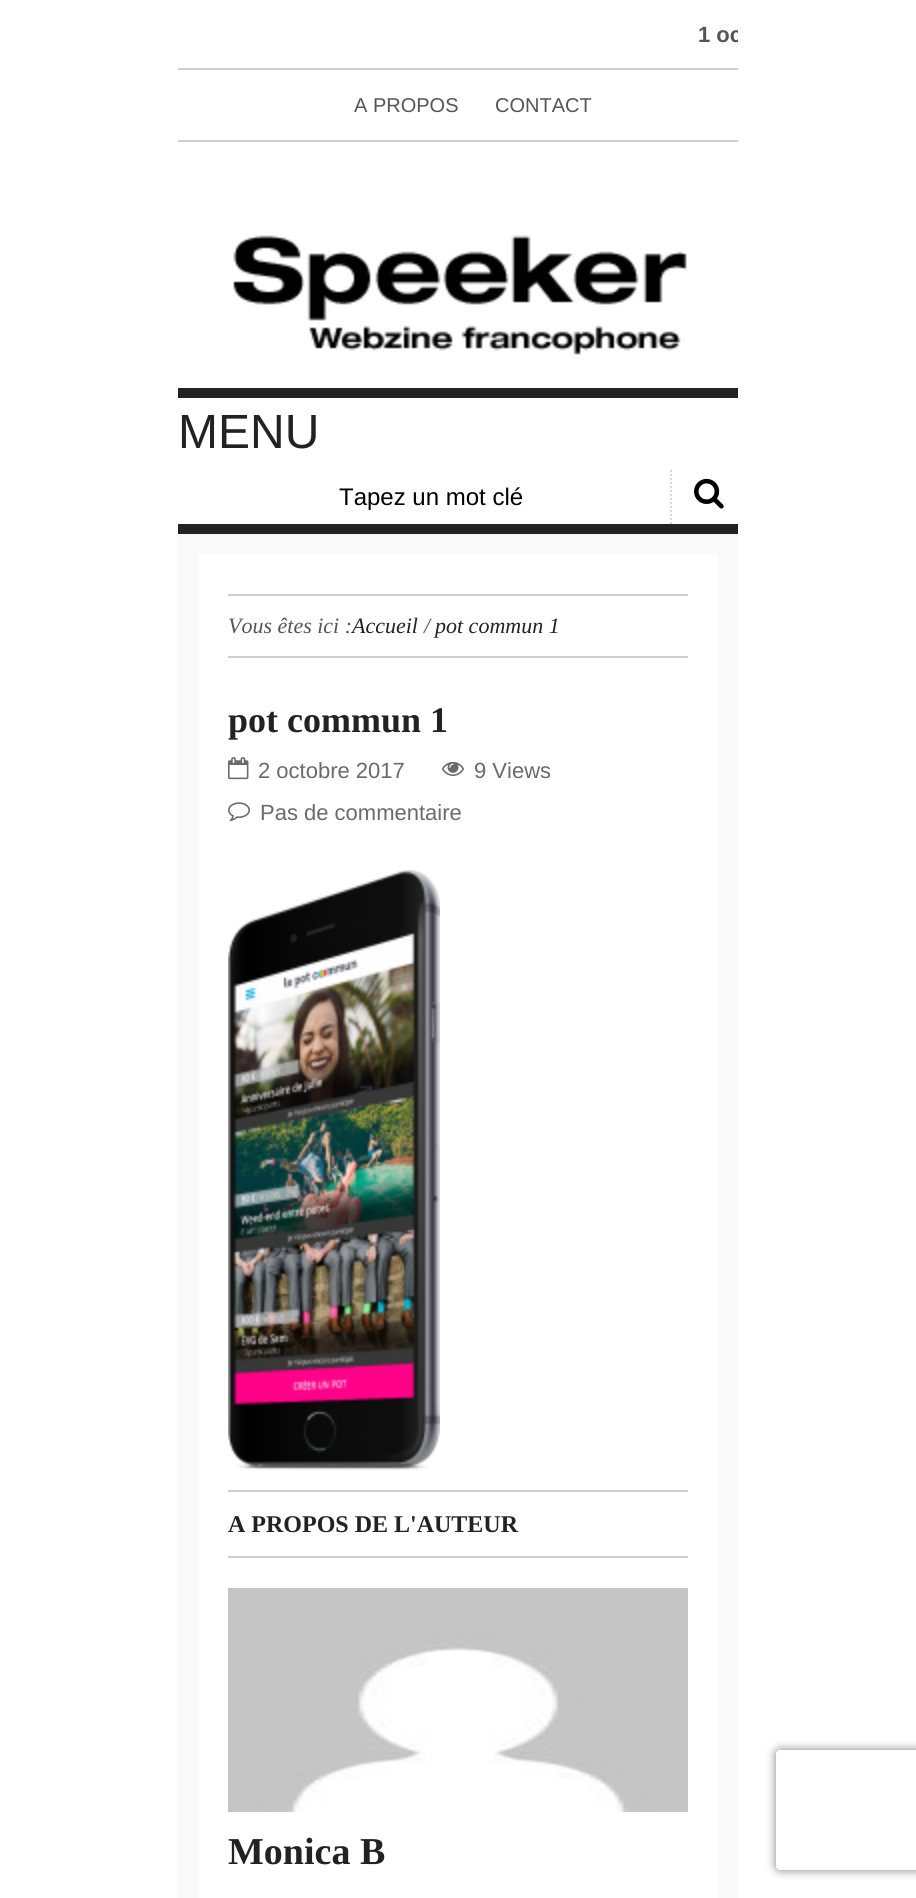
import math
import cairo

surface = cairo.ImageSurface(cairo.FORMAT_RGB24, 916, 1898)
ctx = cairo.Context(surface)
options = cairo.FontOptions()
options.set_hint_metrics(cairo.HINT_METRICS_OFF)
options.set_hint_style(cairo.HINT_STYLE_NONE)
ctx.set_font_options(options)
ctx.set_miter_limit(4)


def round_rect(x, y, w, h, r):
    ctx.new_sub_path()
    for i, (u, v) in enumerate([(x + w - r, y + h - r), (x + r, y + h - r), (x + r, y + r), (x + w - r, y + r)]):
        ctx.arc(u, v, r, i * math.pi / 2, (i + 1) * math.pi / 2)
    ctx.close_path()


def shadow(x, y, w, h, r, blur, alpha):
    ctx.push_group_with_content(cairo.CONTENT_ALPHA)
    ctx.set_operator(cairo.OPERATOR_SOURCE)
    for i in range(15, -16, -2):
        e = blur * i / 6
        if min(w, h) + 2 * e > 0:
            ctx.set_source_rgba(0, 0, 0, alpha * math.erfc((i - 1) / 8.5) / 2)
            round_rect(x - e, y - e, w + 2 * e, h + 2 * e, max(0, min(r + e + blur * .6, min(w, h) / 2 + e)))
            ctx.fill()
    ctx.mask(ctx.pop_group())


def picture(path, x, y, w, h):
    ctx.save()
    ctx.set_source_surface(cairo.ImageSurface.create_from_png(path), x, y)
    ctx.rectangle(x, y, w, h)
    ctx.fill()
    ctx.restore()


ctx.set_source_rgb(1, 1, 1)
ctx.paint()
ctx.set_source_rgb(0.816, 0.816, 0.816)
ctx.rectangle(178, 140, 560, 2)
ctx.fill()
ctx.rectangle(178, 68, 560, 2)
ctx.fill()
ctx.save()
ctx.rectangle(178, 0, 560, 68)
ctx.clip()
ctx.select_font_face("Liberation Sans", cairo.FONT_SLANT_NORMAL, cairo.FONT_WEIGHT_BOLD)
ctx.set_font_size(22)
ctx.set_source_rgb(0.333, 0.333, 0.333)
ctx.move_to(698, 42)
ctx.show_text("1 oc")
ctx.restore()
ctx.select_font_face("Liberation Sans")
ctx.set_font_size(20)
ctx.set_source_rgb(0.333, 0.333, 0.333)
ctx.move_to(354, 112)
ctx.show_text("A PROPOS")
ctx.move_to(495, 112)
ctx.show_text("CONTACT")
picture("img1.png", 233, 235, 454, 120)
ctx.set_source_rgb(0.133, 0.133, 0.133)
ctx.rectangle(178, 388, 560, 10)
ctx.fill()
ctx.rectangle(178, 524, 560, 10)
ctx.fill()
ctx.set_font_size(48)
ctx.move_to(178, 448)
ctx.show_text("MENU")
ctx.new_path()
ctx.move_to(671, 470)
ctx.line_to(671, 524)
ctx.set_source_rgb(0.843, 0.843, 0.843)
ctx.set_dash([2, 2])
ctx.stroke()
ctx.set_font_size(24)
ctx.set_source_rgb(0, 0, 0)
ctx.move_to(339, 505)
ctx.show_text("Tapez un mot clé")
picture("img2.png", 694, 478, 30, 31)
ctx.rectangle(188, 544, 540, 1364)
ctx.set_source_rgb(0.976, 0.976, 0.976)
ctx.set_line_width(20)
ctx.set_dash([])
ctx.stroke()
ctx.set_source_rgb(0.816, 0.816, 0.816)
ctx.rectangle(228, 594, 460, 2)
ctx.fill()
ctx.rectangle(228, 656, 460, 2)
ctx.fill()
ctx.select_font_face("Liberation Serif", cairo.FONT_SLANT_ITALIC)
ctx.set_font_size(22)
ctx.set_source_rgb(0.333, 0.333, 0.333)
ctx.move_to(228, 633)
ctx.show_text("Vous êtes ici :")
ctx.set_source_rgb(0.133, 0.133, 0.133)
ctx.move_to(352, 633)
ctx.show_text("Accueil")
ctx.set_source_rgb(0.333, 0.333, 0.333)
ctx.move_to(424, 633)
ctx.show_text("/")
ctx.set_source_rgb(0.133, 0.133, 0.133)
ctx.move_to(435, 633)
ctx.show_text("pot commun 1")
ctx.select_font_face("Liberation Serif", cairo.FONT_SLANT_NORMAL, cairo.FONT_WEIGHT_BOLD)
ctx.set_font_size(36)
ctx.move_to(228, 732)
ctx.show_text("pot commun 1")
picture("img3.png", 228, 757, 21, 23)
ctx.select_font_face("Liberation Sans")
ctx.set_font_size(22)
ctx.set_source_rgb(0.416, 0.416, 0.416)
ctx.move_to(258, 778)
ctx.show_text("2 octobre 2017")
picture("img4.png", 442, 761, 22, 15)
ctx.move_to(474, 778)
ctx.show_text("9 Views")
picture("img5.png", 228, 802, 22, 20)
ctx.move_to(260, 820)
ctx.show_text("Pas de commentaire")
picture("img6.png", 228, 870, 212, 600)
ctx.set_source_rgb(0.816, 0.816, 0.816)
ctx.rectangle(228, 1490, 460, 2)
ctx.fill()
ctx.rectangle(228, 1556, 460, 2)
ctx.fill()
ctx.select_font_face("Liberation Serif", cairo.FONT_SLANT_NORMAL, cairo.FONT_WEIGHT_BOLD)
ctx.set_font_size(24)
ctx.set_source_rgb(0.133, 0.133, 0.133)
ctx.move_to(228, 1532)
ctx.show_text("A PROPOS DE L'AUTEUR")
picture("img7.png", 228, 1588, 460, 224)
ctx.set_font_size(38)
ctx.move_to(228, 1864)
ctx.show_text("Monica B")
ctx.save()
ctx.set_fill_rule(cairo.FILL_RULE_EVEN_ODD)
ctx.new_path()
ctx.move_to(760, 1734)
ctx.line_to(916, 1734)
ctx.line_to(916, 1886)
ctx.line_to(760, 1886)
ctx.close_path()
ctx.move_to(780, 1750)
ctx.line_to(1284, 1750)
ctx.curve_to(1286, 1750, 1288, 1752, 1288, 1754)
ctx.line_to(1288, 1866)
ctx.curve_to(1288, 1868, 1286, 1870, 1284, 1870)
ctx.line_to(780, 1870)
ctx.curve_to(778, 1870, 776, 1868, 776, 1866)
ctx.line_to(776, 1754)
ctx.curve_to(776, 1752, 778, 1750, 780, 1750)
ctx.close_path()
ctx.clip()
ctx.set_source_rgb(0.502, 0.502, 0.502)
shadow(776, 1750, 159, 120, 4, 5, 1)
ctx.restore()
surface.write_to_png("page.png")
